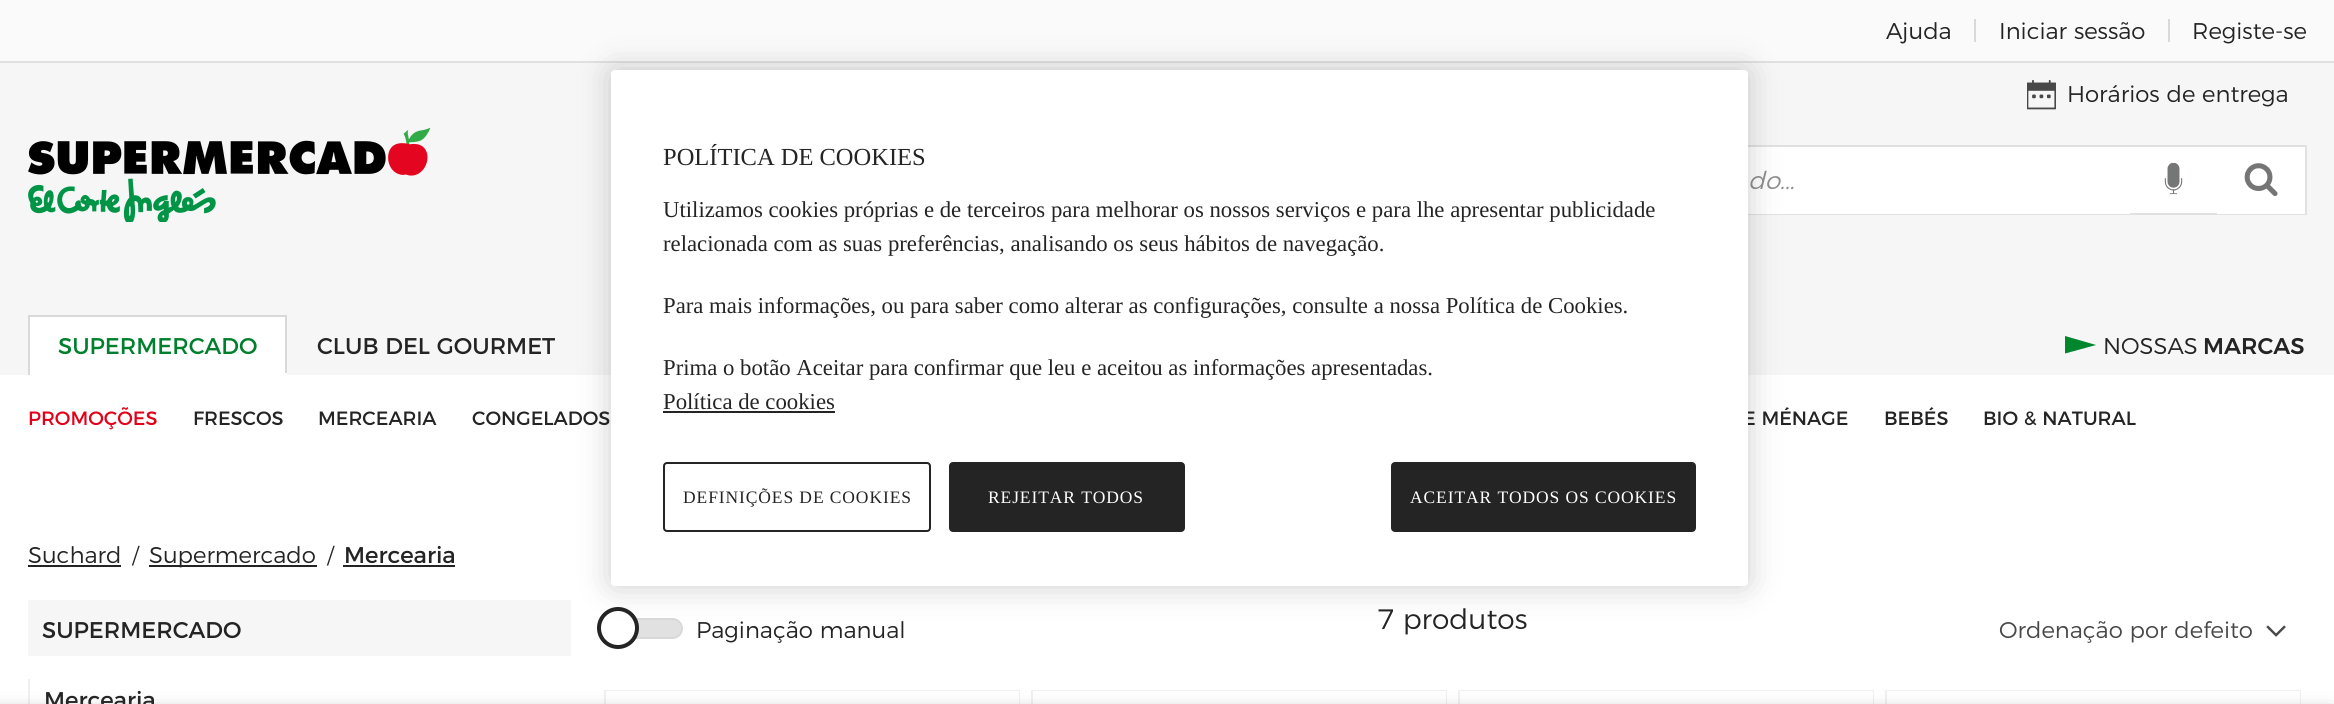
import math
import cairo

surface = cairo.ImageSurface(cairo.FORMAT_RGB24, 2334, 704)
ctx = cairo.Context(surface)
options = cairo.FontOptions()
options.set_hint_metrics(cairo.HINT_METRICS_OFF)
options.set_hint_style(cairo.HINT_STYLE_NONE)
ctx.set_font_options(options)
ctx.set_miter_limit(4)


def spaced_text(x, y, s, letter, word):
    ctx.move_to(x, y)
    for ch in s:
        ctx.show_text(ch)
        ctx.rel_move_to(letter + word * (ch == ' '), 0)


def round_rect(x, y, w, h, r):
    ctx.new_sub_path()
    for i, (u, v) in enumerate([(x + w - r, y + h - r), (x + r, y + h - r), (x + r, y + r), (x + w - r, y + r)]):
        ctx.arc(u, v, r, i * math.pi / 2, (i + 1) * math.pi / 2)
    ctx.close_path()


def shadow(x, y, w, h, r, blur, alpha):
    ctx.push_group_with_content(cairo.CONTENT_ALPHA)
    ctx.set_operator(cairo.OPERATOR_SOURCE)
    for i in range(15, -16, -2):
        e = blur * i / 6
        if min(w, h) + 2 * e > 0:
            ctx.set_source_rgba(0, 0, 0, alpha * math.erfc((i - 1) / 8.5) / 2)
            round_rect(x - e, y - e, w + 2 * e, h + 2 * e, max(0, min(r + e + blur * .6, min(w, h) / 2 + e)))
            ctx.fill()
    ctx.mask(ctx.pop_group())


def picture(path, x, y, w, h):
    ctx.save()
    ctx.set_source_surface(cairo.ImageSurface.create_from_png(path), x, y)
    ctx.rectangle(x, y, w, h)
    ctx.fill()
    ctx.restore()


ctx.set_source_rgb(1, 1, 1)
ctx.paint()
ctx.set_source_rgb(0.98, 0.98, 0.98)
ctx.rectangle(0, 0, 2334, 61)
ctx.fill()
ctx.set_source_rgb(0.882, 0.882, 0.882)
ctx.rectangle(0, 61, 2334, 2)
ctx.fill()
ctx.select_font_face("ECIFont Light")
ctx.set_font_size(22.75)
ctx.set_source_rgb(0.141, 0.141, 0.141)
ctx.move_to(1886, 39)
ctx.show_text("Ajuda")
ctx.set_source_rgb(0.851, 0.851, 0.851)
ctx.rectangle(1974, 19, 2, 23)
ctx.fill()
ctx.set_source_rgb(0.141, 0.141, 0.141)
ctx.move_to(1999, 39)
ctx.show_text("Iniciar sessão")
ctx.set_source_rgb(0.851, 0.851, 0.851)
ctx.rectangle(2168, 19, 2, 23)
ctx.fill()
ctx.set_source_rgb(0.141, 0.141, 0.141)
ctx.move_to(2192, 39)
ctx.show_text("Registe-se")
ctx.set_source_rgb(0.961, 0.961, 0.961)
ctx.rectangle(0, 63, 2334, 312)
ctx.fill()
picture("img1.png", 2027, 79, 29, 31)
ctx.set_source_rgb(0.141, 0.141, 0.141)
ctx.move_to(2067, 102)
ctx.show_text("Horários de entrega")
picture("img2.png", 28, 128, 403, 94)
ctx.set_source_rgb(1, 1, 1)
ctx.rectangle(2130, 147, 87, 66)
ctx.fill()
ctx.rectangle(1385, 146, 921, 68)
ctx.set_source_rgb(0.882, 0.882, 0.882)
ctx.stroke()
ctx.set_source_rgb(1, 1, 1)
ctx.rectangle(1748, 147, 382, 67)
ctx.fill()
ctx.select_font_face("ECIFont Light", cairo.FONT_SLANT_ITALIC)
ctx.set_font_size(24.5)
ctx.set_source_rgb(0.561, 0.561, 0.561)
ctx.move_to(1748, 189)
ctx.show_text("do...")
picture("img3.png", 2164, 162, 19, 33)
ctx.set_source_rgb(1, 1, 1)
ctx.rectangle(2217, 147, 88, 67)
ctx.fill()
picture("img4.png", 2244, 163, 34, 33)
ctx.rectangle(30, 317, 255, 56)
ctx.fill()
ctx.set_source_rgb(0.851, 0.851, 0.851)
ctx.rectangle(28, 315, 259, 2)
ctx.fill()
ctx.rectangle(285, 315, 2, 60)
ctx.fill()
ctx.set_source_rgb(1, 1, 1)
ctx.rectangle(28, 373, 259, 2)
ctx.fill()
ctx.set_source_rgb(0.851, 0.851, 0.851)
ctx.rectangle(28, 315, 2, 60)
ctx.fill()
ctx.select_font_face("ECIFont")
ctx.set_font_size(22.75)
ctx.set_source_rgb(0, 0.502, 0.176)
ctx.move_to(58, 354)
ctx.show_text("SUPERMERCADO")
ctx.set_source_rgb(0.141, 0.141, 0.141)
ctx.move_to(317, 354)
ctx.show_text("CLUB DEL GOURMET")
ctx.set_source_rgb(0, 0.525, 0.176)
ctx.new_path()
ctx.move_to(2065, 336)
ctx.line_to(2065, 353.5)
ctx.line_to(2096, 345)
ctx.close_path()
ctx.fill()
ctx.select_font_face("ECIFont Light")
ctx.set_source_rgb(0.141, 0.141, 0.141)
ctx.move_to(2103, 354)
ctx.show_text("NOSSAS")
ctx.select_font_face("ECIFont Medium")
ctx.move_to(2203, 354)
ctx.show_text("MARCAS")
ctx.set_source_rgb(0.961, 0.961, 0.961)
ctx.rectangle(28, 600, 543, 56)
ctx.fill()
ctx.set_source_rgb(0.882, 0.882, 0.882)
round_rect(614, 619, 68, 19, 9.5)
ctx.fill_preserve()
ctx.set_source_rgb(0.851, 0.851, 0.851)
ctx.stroke()
ctx.set_source_rgb(1, 1, 1)
ctx.arc(618, 628, 19, 0, 2 * math.pi)
ctx.fill_preserve()
ctx.set_source_rgb(0.141, 0.141, 0.141)
ctx.set_line_width(4)
ctx.stroke()
ctx.set_source_rgb(0, 0, 0)
shadow(611, 70, 1137, 516, 4, 16, 0.2)
ctx.select_font_face("ECIFont")
ctx.set_font_size(19.25)
ctx.set_source_rgb(0.141, 0.141, 0.141)
ctx.move_to(1743, 425)
ctx.show_text("E MÉNAGE")
ctx.set_source_rgb(1, 1, 1)
round_rect(611, 70, 1137, 516, 4)
ctx.fill()
ctx.select_font_face("Liberation Serif")
ctx.set_font_size(24.5)
ctx.set_source_rgb(0.141, 0.141, 0.141)
ctx.move_to(663, 165)
ctx.show_text("POLÍTICA DE COOKIES")
ctx.set_font_size(22.75)
ctx.move_to(663, 217)
ctx.show_text("Utilizamos cookies próprias e de terceiros para melhorar os nossos serviços e para lhe apresentar publicidade")
ctx.move_to(663, 251)
ctx.show_text("relacionada com as suas preferências, analisando os seus hábitos de navegação.")
ctx.move_to(663, 313)
ctx.show_text("Para mais informações, ou para saber como alterar as configurações, consulte a nossa Política de Cookies.")
ctx.move_to(663, 375)
ctx.show_text("Prima o botão Aceitar para confirmar que leu e aceitou as informações apresentadas.")
ctx.move_to(663, 409)
ctx.show_text("Política de cookies")
ctx.rectangle(663, 411, 172, 2)
ctx.fill()
round_rect(664, 463, 266, 68, 3)
ctx.set_line_width(2)
ctx.stroke()
ctx.set_font_size(17.5)
spaced_text(683, 503, "DEFINIÇÕES DE COOKIES", 0.9, 0)
round_rect(950, 463, 234, 68, 3)
ctx.fill_preserve()
ctx.stroke()
ctx.set_source_rgb(1, 1, 1)
spaced_text(988, 503, "REJEITAR TODOS", 0.9, 0)
ctx.set_source_rgb(0.141, 0.141, 0.141)
round_rect(1392, 463, 303, 68, 3)
ctx.fill_preserve()
ctx.stroke()
ctx.set_source_rgb(1, 1, 1)
spaced_text(1410, 503, "ACEITAR TODOS OS COOKIES", 0.9, 0)
ctx.select_font_face("ECIFont")
ctx.set_font_size(19.25)
ctx.set_source_rgb(0.886, 0, 0.102)
ctx.move_to(28, 425)
ctx.show_text("PROMOÇÕES")
ctx.set_source_rgb(0.141, 0.141, 0.141)
ctx.move_to(193, 425)
ctx.show_text("FRESCOS")
ctx.move_to(318, 425)
ctx.show_text("MERCEARIA")
ctx.move_to(472, 425)
ctx.show_text("CONGELADOS")
ctx.move_to(1884, 425)
ctx.show_text("BEBÉS")
ctx.move_to(1983, 425)
ctx.show_text("BIO & NATURAL")
ctx.select_font_face("ECIFont Light")
ctx.set_font_size(22.75)
ctx.move_to(28, 563)
ctx.show_text("Suchard")
ctx.rectangle(28, 565, 93, 2)
ctx.fill()
ctx.set_font_size(21)
ctx.move_to(132, 563)
ctx.show_text("/")
ctx.rectangle(149, 565, 168, 2)
ctx.fill()
ctx.set_font_size(22.75)
ctx.move_to(149, 563)
ctx.show_text("Supermercado")
ctx.set_font_size(21)
ctx.move_to(327, 563)
ctx.show_text("/")
ctx.select_font_face("ECIFont")
ctx.set_font_size(22.75)
ctx.move_to(344, 563)
ctx.show_text("Mercearia")
ctx.rectangle(343, 565, 112, 2)
ctx.fill()
ctx.move_to(42, 638)
ctx.show_text("SUPERMERCADO")
ctx.set_source_rgb(0.941, 0.941, 0.941)
ctx.rectangle(28, 679, 2, 25)
ctx.fill()
ctx.set_source_rgb(0.141, 0.141, 0.141)
ctx.move_to(44, 708)
ctx.show_text("Mercearia")
ctx.select_font_face("ECIFont Light")
ctx.move_to(696, 638)
ctx.show_text("Paginação manual")
ctx.set_font_size(28)
ctx.move_to(1377, 629)
ctx.show_text("7 produtos")
ctx.set_font_size(22.75)
ctx.set_source_rgb(0.282, 0.282, 0.282)
ctx.move_to(1999, 638)
ctx.show_text("Ordenação por defeito")
picture("img5.png", 2266, 625, 20, 12)
ctx.rectangle(605, 691, 414, 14)
ctx.set_source_rgb(0.941, 0.941, 0.941)
ctx.stroke()
ctx.set_source_rgb(1, 1, 1)
ctx.rectangle(606, 691, 413, 13)
ctx.fill()
ctx.rectangle(1032, 691, 414, 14)
ctx.set_source_rgb(0.941, 0.941, 0.941)
ctx.stroke()
ctx.set_source_rgb(1, 1, 1)
ctx.rectangle(1033, 691, 413, 13)
ctx.fill()
ctx.rectangle(1459, 691, 414, 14)
ctx.set_source_rgb(0.941, 0.941, 0.941)
ctx.stroke()
ctx.set_source_rgb(1, 1, 1)
ctx.rectangle(1460, 691, 413, 13)
ctx.fill()
ctx.rectangle(1886, 691, 414, 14)
ctx.set_source_rgb(0.941, 0.941, 0.941)
ctx.stroke()
ctx.set_source_rgb(1, 1, 1)
ctx.rectangle(1887, 691, 413, 13)
ctx.fill()
ctx.set_source_rgb(0.361, 0.361, 0.361)
shadow(-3, 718, 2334, 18, 0, 10.5, 1)
surface.write_to_png("page.png")
